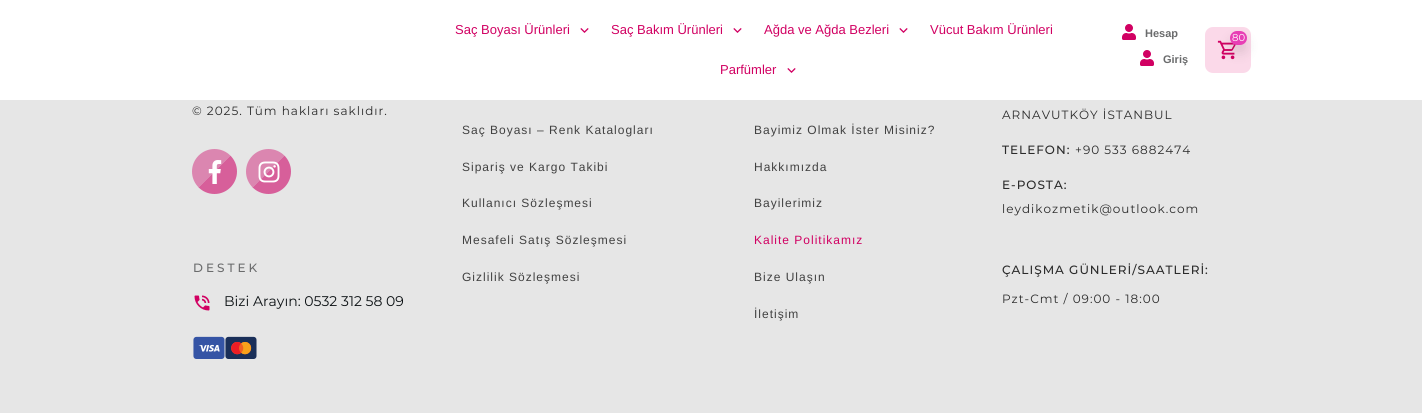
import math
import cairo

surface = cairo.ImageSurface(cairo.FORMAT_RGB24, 1422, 413)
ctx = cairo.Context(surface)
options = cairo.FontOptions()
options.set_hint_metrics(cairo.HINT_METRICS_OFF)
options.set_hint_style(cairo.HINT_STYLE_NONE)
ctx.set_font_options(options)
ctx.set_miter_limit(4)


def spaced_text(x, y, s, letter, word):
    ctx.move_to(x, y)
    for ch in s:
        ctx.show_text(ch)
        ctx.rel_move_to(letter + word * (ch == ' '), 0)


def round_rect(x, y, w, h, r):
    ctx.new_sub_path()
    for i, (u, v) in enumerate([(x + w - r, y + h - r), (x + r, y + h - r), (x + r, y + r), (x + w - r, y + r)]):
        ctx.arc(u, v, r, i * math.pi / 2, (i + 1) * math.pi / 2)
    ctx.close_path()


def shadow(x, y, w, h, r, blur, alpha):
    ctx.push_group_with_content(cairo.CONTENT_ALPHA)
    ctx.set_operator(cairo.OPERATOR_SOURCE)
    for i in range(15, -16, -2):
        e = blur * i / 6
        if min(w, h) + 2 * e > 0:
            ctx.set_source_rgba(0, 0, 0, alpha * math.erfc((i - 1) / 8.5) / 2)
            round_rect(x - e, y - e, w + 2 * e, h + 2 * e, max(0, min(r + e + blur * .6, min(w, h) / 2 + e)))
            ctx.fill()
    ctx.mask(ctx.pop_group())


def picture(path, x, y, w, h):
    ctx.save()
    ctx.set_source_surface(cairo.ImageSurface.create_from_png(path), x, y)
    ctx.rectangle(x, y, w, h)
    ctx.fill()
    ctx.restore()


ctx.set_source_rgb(0.902, 0.902, 0.902)
ctx.paint()
ctx.set_source_rgb(1, 1, 1)
ctx.rectangle(0, 0, 1422, 100)
ctx.fill()
ctx.select_font_face("Liberation Sans")
ctx.set_font_size(13)
ctx.set_source_rgb(0.82, 0, 0.384)
ctx.move_to(455, 34)
ctx.show_text("Saç Boyası Ürünleri")
picture("img1.png", 580, 28, 9, 5)
ctx.move_to(611, 34)
ctx.show_text("Saç Bakım Ürünleri")
picture("img1.png", 733, 28, 9, 5)
ctx.move_to(764, 34)
ctx.show_text("Ağda ve Ağda Bezleri")
picture("img1.png", 899, 28, 9, 5)
ctx.move_to(930, 34)
ctx.show_text("Vücut Bakım Ürünleri")
ctx.move_to(720, 74)
ctx.show_text("Parfümler")
picture("img1.png", 787, 68, 9, 5)
picture("img2.png", 1122, 24, 14, 16)
ctx.select_font_face("Liberation Sans", cairo.FONT_SLANT_NORMAL, cairo.FONT_WEIGHT_BOLD)
ctx.set_font_size(11)
ctx.set_source_rgb(0.416, 0.42, 0.424)
ctx.move_to(1145, 37)
ctx.show_text("Hesap")
picture("img2.png", 1140, 50, 14, 16)
ctx.move_to(1163, 63)
ctx.show_text("Giriş")
ctx.set_source_rgb(0.984, 0.851, 0.914)
round_rect(1205, 27, 46, 46, 8)
ctx.fill()
picture("img3.png", 1217, 40, 20, 20)
ctx.set_source_rgb(0, 0, 0)
shadow(1230, 39, 17, 14, 7, 6, 0.1)
ctx.set_source_rgb(0.91, 0.243, 0.71)
round_rect(1230, 31, 17, 14, 7)
ctx.fill()
ctx.select_font_face("Montserrat")
ctx.set_font_size(10)
ctx.set_source_rgb(1, 1, 1)
ctx.move_to(1232, 41)
ctx.show_text("80")
ctx.set_font_size(12)
ctx.set_source_rgb(0.169, 0.169, 0.169)
spaced_text(192, 115, "© 2025. Tüm hakları saklıdır.", 1, 0)
gradient = cairo.LinearGradient(192, 149, 237, 194)
gradient.add_color_stop_rgba(0.5, 0.859, 0.525, 0.69, 1)
gradient.add_color_stop_rgba(0.5, 0.843, 0.373, 0.604, 1)
ctx.set_source(gradient)
ctx.new_path()
ctx.arc(214.5, 171.5, 22.5, 0, 2 * math.pi)
ctx.fill()
picture("img4.png", 208, 160, 14, 24)
gradient = cairo.LinearGradient(246, 149, 291, 194)
gradient.add_color_stop_rgba(0.5, 0.859, 0.525, 0.69, 1)
gradient.add_color_stop_rgba(0.5, 0.843, 0.373, 0.604, 1)
ctx.set_source(gradient)
ctx.arc(268.5, 171.5, 22.5, 0, 2 * math.pi)
ctx.fill()
picture("img5.png", 258, 161, 22, 22)
ctx.select_font_face("Montserrat Medium")
ctx.set_source_rgb(0.416, 0.42, 0.424)
spaced_text(193, 272, "DESTEK", 3, 0)
picture("img6.png", 194, 295, 16, 16)
ctx.select_font_face("Montserrat")
ctx.set_font_size(14)
ctx.set_source_rgb(0.047, 0.067, 0.082)
ctx.move_to(224, 306)
ctx.show_text("Bizi Arayın: 0532 312 58 09")
picture("img7.png", 193, 336, 32, 23)
picture("img8.png", 225, 336, 32, 23)
ctx.select_font_face("Liberation Sans")
ctx.set_font_size(12)
ctx.set_source_rgb(0.255, 0.255, 0.255)
spaced_text(462, 134, "Saç Boyası – Renk Katalogları", 1, 0)
spaced_text(462, 171, "Sipariş ve Kargo Takibi", 1, 0)
spaced_text(462, 207, "Kullanıcı Sözleşmesi", 1, 0)
spaced_text(462, 244, "Mesafeli Satış Sözleşmesi", 1, 0)
spaced_text(462, 281, "Gizlilik Sözleşmesi", 1, 0)
spaced_text(754, 134, "Bayimiz Olmak İster Misiniz?", 1, 0)
spaced_text(754, 171, "Hakkımızda", 1, 0)
spaced_text(754, 207, "Bayilerimiz", 1, 0)
ctx.set_source_rgb(0.82, 0, 0.384)
spaced_text(754, 244, "Kalite Politikamız", 1, 0)
ctx.set_source_rgb(0.255, 0.255, 0.255)
spaced_text(754, 281, "Bize Ulaşın", 1, 0)
spaced_text(754, 318, "İletişim", 1, 0)
ctx.select_font_face("Montserrat")
ctx.set_source_rgb(0.169, 0.169, 0.169)
spaced_text(1002, 119, "ARNAVUTKÖY İSTANBUL", 1, 0)
ctx.select_font_face("Montserrat Medium")
spaced_text(1002, 154, "TELEFON:", 1, 0)
ctx.select_font_face("Montserrat")
spaced_text(1075, 154, "+90 533 6882474", 1, 0)
ctx.select_font_face("Montserrat Medium")
spaced_text(1002, 189, "E-POSTA:", 1, 0)
ctx.select_font_face("Montserrat")
spaced_text(1002, 213, "leydikozmetik@outlook.com", 1, 0)
ctx.select_font_face("Montserrat Medium")
spaced_text(1002, 274, "ÇALIŞMA GÜNLERİ/SAATLERİ:", 1, 0)
ctx.select_font_face("Montserrat")
spaced_text(1002, 303, "Pzt-Cmt / 09:00 - 18:00", 1, 0)
surface.write_to_png("page.png")
